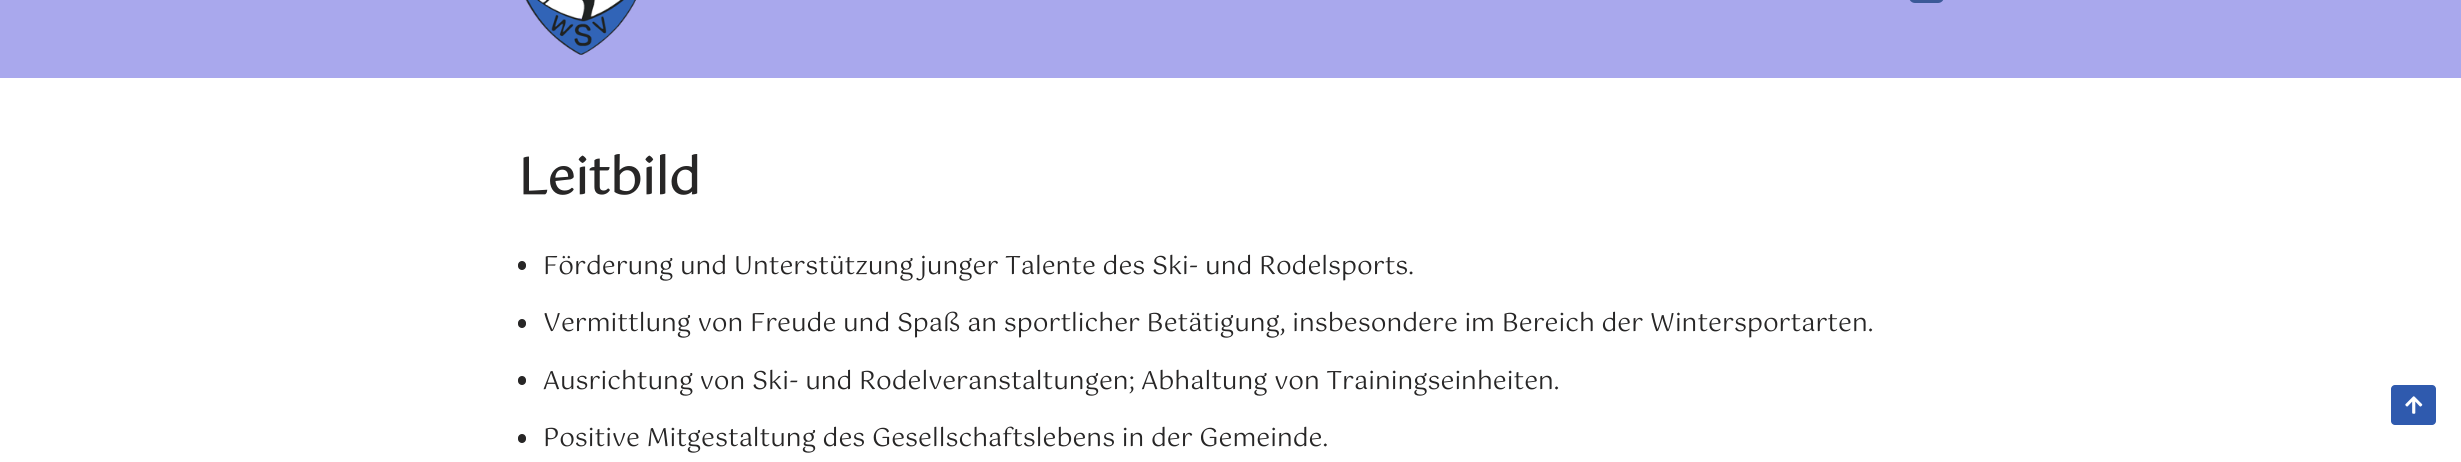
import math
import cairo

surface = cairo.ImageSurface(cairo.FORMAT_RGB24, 2461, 462)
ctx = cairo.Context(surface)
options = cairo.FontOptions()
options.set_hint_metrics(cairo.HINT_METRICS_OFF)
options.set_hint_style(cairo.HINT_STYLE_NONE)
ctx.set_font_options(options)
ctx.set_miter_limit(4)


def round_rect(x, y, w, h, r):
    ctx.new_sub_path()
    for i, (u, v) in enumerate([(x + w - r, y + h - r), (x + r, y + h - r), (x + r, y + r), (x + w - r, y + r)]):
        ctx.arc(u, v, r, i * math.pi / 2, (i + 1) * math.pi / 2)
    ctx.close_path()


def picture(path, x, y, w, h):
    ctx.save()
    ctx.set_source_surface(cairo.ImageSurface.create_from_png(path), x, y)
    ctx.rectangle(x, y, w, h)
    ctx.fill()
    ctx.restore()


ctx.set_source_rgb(1, 1, 1)
ctx.paint()
ctx.set_source_rgb(0.663, 0.659, 0.929)
ctx.rectangle(0, 0, 2461, 78)
ctx.fill()
ctx.set_source_rgb(0.231, 0.349, 0.596)
round_rect(1909, -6, 35, 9, 6)
ctx.fill()
picture("img1.png", 525, 0, 111, 55)
ctx.select_font_face("Gotu", cairo.FONT_SLANT_NORMAL, cairo.FONT_WEIGHT_BOLD)
ctx.set_font_size(50)
ctx.set_source_rgb(0.153, 0.149, 0.149)
ctx.move_to(518, 194)
ctx.show_text("Leitbild")
round_rect(518, 261, 8, 9, 4)
ctx.fill()
ctx.select_font_face("Gotu")
ctx.set_font_size(25)
ctx.move_to(543, 274)
ctx.show_text("Förderung und Unterstützung junger Talente des Ski- und Rodelsports.")
round_rect(518, 319, 8, 9, 4)
ctx.fill()
ctx.move_to(543, 331)
ctx.show_text("Vermittlung von Freude und Spaß an sportlicher Betätigung, insbesondere im Bereich der Wintersportarten.")
round_rect(518, 376, 8, 9, 4)
ctx.fill()
ctx.move_to(543, 389)
ctx.show_text("Ausrichtung von Ski- und Rodelveranstaltungen; Abhaltung von Trainingseinheiten.")
round_rect(518, 434, 8, 9, 4)
ctx.fill()
ctx.move_to(543, 446)
ctx.show_text("Positive Mitgestaltung des Gesellschaftslebens in der Gemeinde.")
ctx.set_source_rgb(0.184, 0.353, 0.682)
round_rect(2391, 385, 45, 40, 4)
ctx.fill()
picture("img2.png", 2405, 396, 18, 18)
surface.write_to_png("page.png")
